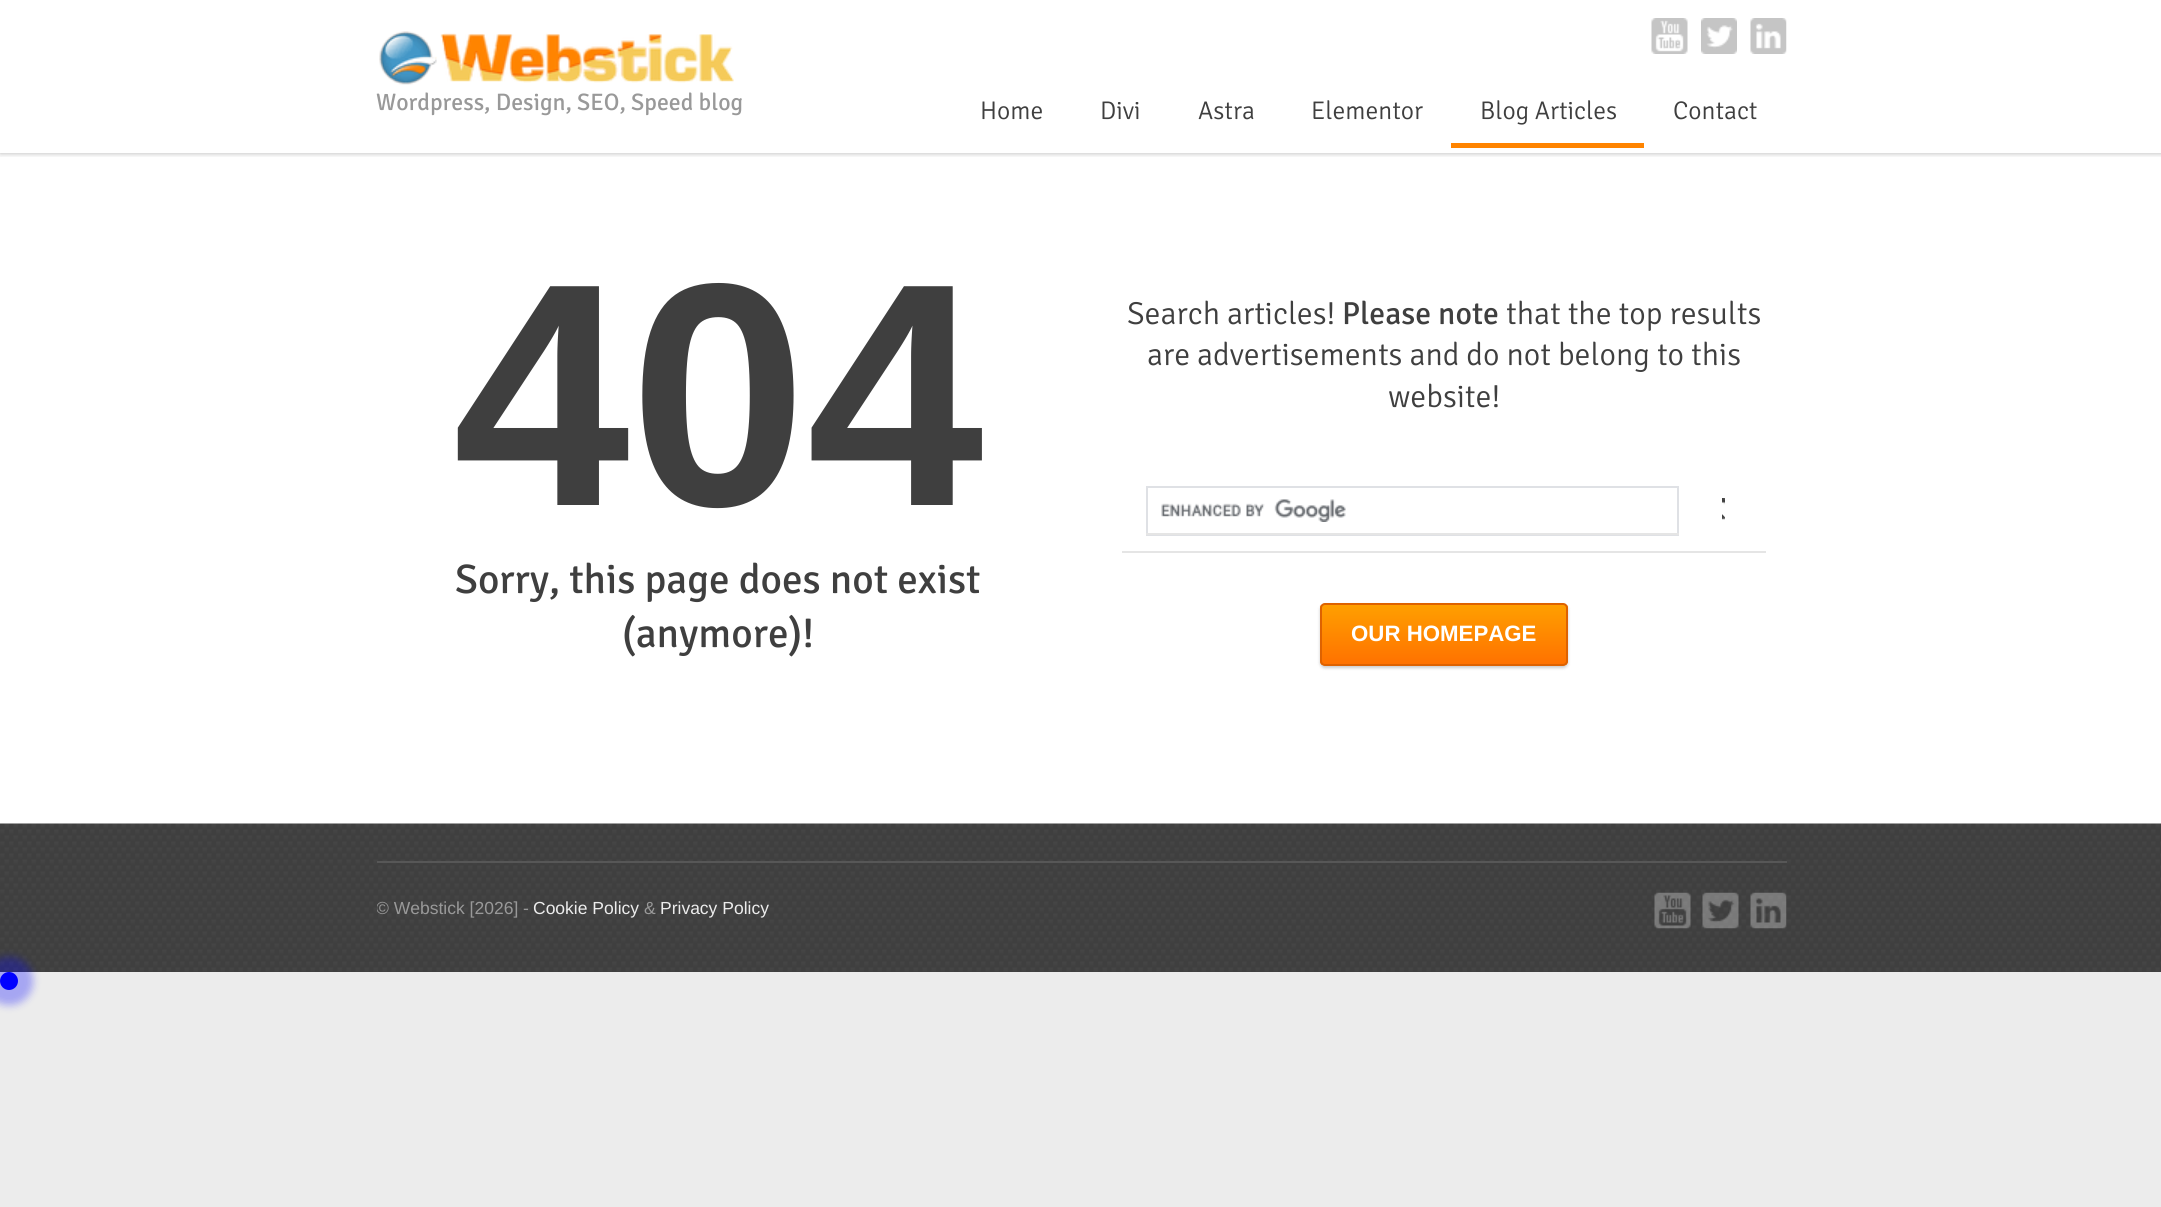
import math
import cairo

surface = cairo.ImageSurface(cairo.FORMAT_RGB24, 2161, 1207)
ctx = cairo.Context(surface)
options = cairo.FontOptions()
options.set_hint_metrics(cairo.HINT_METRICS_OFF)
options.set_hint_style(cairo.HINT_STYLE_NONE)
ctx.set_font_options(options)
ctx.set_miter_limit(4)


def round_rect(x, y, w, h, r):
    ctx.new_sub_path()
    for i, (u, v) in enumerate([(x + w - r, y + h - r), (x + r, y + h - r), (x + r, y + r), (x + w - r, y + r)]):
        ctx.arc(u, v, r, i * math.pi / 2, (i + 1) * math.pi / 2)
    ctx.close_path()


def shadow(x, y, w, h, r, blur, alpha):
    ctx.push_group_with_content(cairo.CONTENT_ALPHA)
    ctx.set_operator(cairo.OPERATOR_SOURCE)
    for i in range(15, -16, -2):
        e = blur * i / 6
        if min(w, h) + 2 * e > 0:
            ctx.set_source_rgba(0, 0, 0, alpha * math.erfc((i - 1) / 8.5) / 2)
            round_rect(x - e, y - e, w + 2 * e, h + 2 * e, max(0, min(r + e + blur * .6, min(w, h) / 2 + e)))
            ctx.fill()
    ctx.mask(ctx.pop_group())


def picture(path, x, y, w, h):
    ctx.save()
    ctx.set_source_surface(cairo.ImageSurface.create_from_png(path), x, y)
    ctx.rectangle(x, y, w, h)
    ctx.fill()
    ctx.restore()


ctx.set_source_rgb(0.925, 0.925, 0.925)
ctx.paint()
ctx.set_source_rgb(1, 1, 1)
ctx.rectangle(0, 0, 2161, 824)
ctx.fill()
ctx.save()
ctx.rectangle(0, 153, 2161, 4)
ctx.clip()
ctx.set_source_rgb(0, 0, 0)
shadow(0, 0, 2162, 153, 0, 3, 0.3)
ctx.restore()
picture("img1.png", 1651, 18, 37, 36)
picture("img2.png", 1701, 18, 36, 36)
picture("img3.png", 1750, 18, 37, 36)
picture("img4.png", 379, 31, 355, 54)
ctx.select_font_face("Signika")
ctx.set_font_size(23.8)
ctx.set_source_rgb(0.6, 0.6, 0.6)
ctx.move_to(376, 110)
ctx.show_text("Wordpress, Design, SEO, Speed blog")
ctx.select_font_face("Signika Light")
ctx.set_font_size(25.5)
ctx.set_source_rgb(0.247, 0.247, 0.247)
ctx.move_to(980, 119)
ctx.show_text("Home")
ctx.move_to(1100, 119)
ctx.show_text("Divi")
ctx.move_to(1198, 119)
ctx.show_text("Astra")
ctx.move_to(1311, 119)
ctx.show_text("Elementor")
ctx.set_source_rgb(1, 0.518, 0)
ctx.rectangle(1451, 143, 193, 5)
ctx.fill()
ctx.set_source_rgb(0.247, 0.247, 0.247)
ctx.move_to(1480, 119)
ctx.show_text("Blog Articles")
ctx.move_to(1673, 119)
ctx.show_text("Contact")
ctx.select_font_face("Liberation Sans", cairo.FONT_SLANT_NORMAL, cairo.FONT_WEIGHT_BOLD)
ctx.set_font_size(318)
ctx.move_to(453, 505)
ctx.show_text("404")
ctx.select_font_face("Signika")
ctx.set_font_size(41.25)
ctx.move_to(455, 593)
ctx.show_text("Sorry, this page does not exist")
ctx.move_to(622, 647)
ctx.show_text("(anymore)!")
ctx.select_font_face("Signika Light")
ctx.set_font_size(31.75)
ctx.move_to(1127, 324)
ctx.show_text("Search articles!")
ctx.select_font_face("Signika")
ctx.move_to(1342, 324)
ctx.show_text("Please note")
ctx.select_font_face("Signika Light")
ctx.move_to(1506, 324)
ctx.show_text("that the top results")
ctx.move_to(1147, 365)
ctx.show_text("are advertisements and do not belong to this")
ctx.move_to(1388, 407)
ctx.show_text("website!")
ctx.rectangle(1147, 487, 531, 48)
ctx.set_source_rgb(0.875, 0.882, 0.898)
ctx.stroke()
picture("img5.png", 1161, 499, 185, 23)
ctx.set_source_rgb(0.898, 0.898, 0.898)
ctx.rectangle(1146, 533, 533, 2)
ctx.fill()
ctx.rectangle(1122, 551, 644, 2)
ctx.fill()
picture("img6.png", 1722, 498, 3, 22)
picture("img7.png", 1722, 512, 3, 5)
ctx.set_source_rgb(0, 0, 0)
shadow(1320, 605, 248, 63, 5, 1.5, 0.2)
ctx.save()
round_rect(1320, 603, 248, 63, 5)
ctx.clip()
gradient = cairo.LinearGradient(1444, 605, 1444, 665)
gradient.add_color_stop_rgba(0, 1, 0.624, 0, 1)
gradient.add_color_stop_rgba(1, 1, 0.443, 0, 1)
ctx.set_source(gradient)
ctx.rectangle(1320, 605, 248, 60)
ctx.fill()
ctx.restore()
round_rect(1321, 604, 246, 61, 4)
ctx.set_source_rgb(0.871, 0.384, 0)
ctx.stroke()
ctx.select_font_face("Liberation Sans", cairo.FONT_SLANT_NORMAL, cairo.FONT_WEIGHT_BOLD)
ctx.set_font_size(22.25)
ctx.set_source_rgb(1, 1, 1)
ctx.move_to(1351, 641)
ctx.show_text("OUR HOMEPAGE")
picture("img8.png", 0, 823, 2161, 149)
ctx.set_source_rgb(0.341, 0.341, 0.341)
ctx.rectangle(377, 861, 1410, 2)
ctx.fill()
ctx.save()
ctx.rectangle(377, 863, 1410, 109)
ctx.clip()
ctx.select_font_face("Liberation Sans")
ctx.set_font_size(17.5)
ctx.set_source_rgb(0.6, 0.6, 0.6)
ctx.move_to(376, 914)
ctx.show_text("© Webstick [2026] -")
ctx.restore()
ctx.select_font_face("Liberation Sans")
ctx.set_font_size(17.5)
ctx.set_source_rgb(0.922, 0.922, 0.922)
ctx.move_to(533, 914)
ctx.show_text("Cookie Policy")
ctx.set_source_rgb(0.6, 0.6, 0.6)
ctx.move_to(644, 914)
ctx.show_text("&")
ctx.set_source_rgb(0.922, 0.922, 0.922)
ctx.move_to(660, 914)
ctx.show_text("Privacy Policy")
picture("img9.png", 1654, 892, 37, 37)
picture("img10.png", 1702, 892, 37, 37)
picture("img11.png", 1750, 892, 37, 37)
ctx.set_source_rgb(0, 0, 1)
shadow(-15, 957, 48, 48, 24, 4, 0.3)
ctx.set_source_rgb(0, 0, 1)
ctx.arc(9, 981, 9, 0, 2 * math.pi)
ctx.fill()
surface.write_to_png("page.png")
